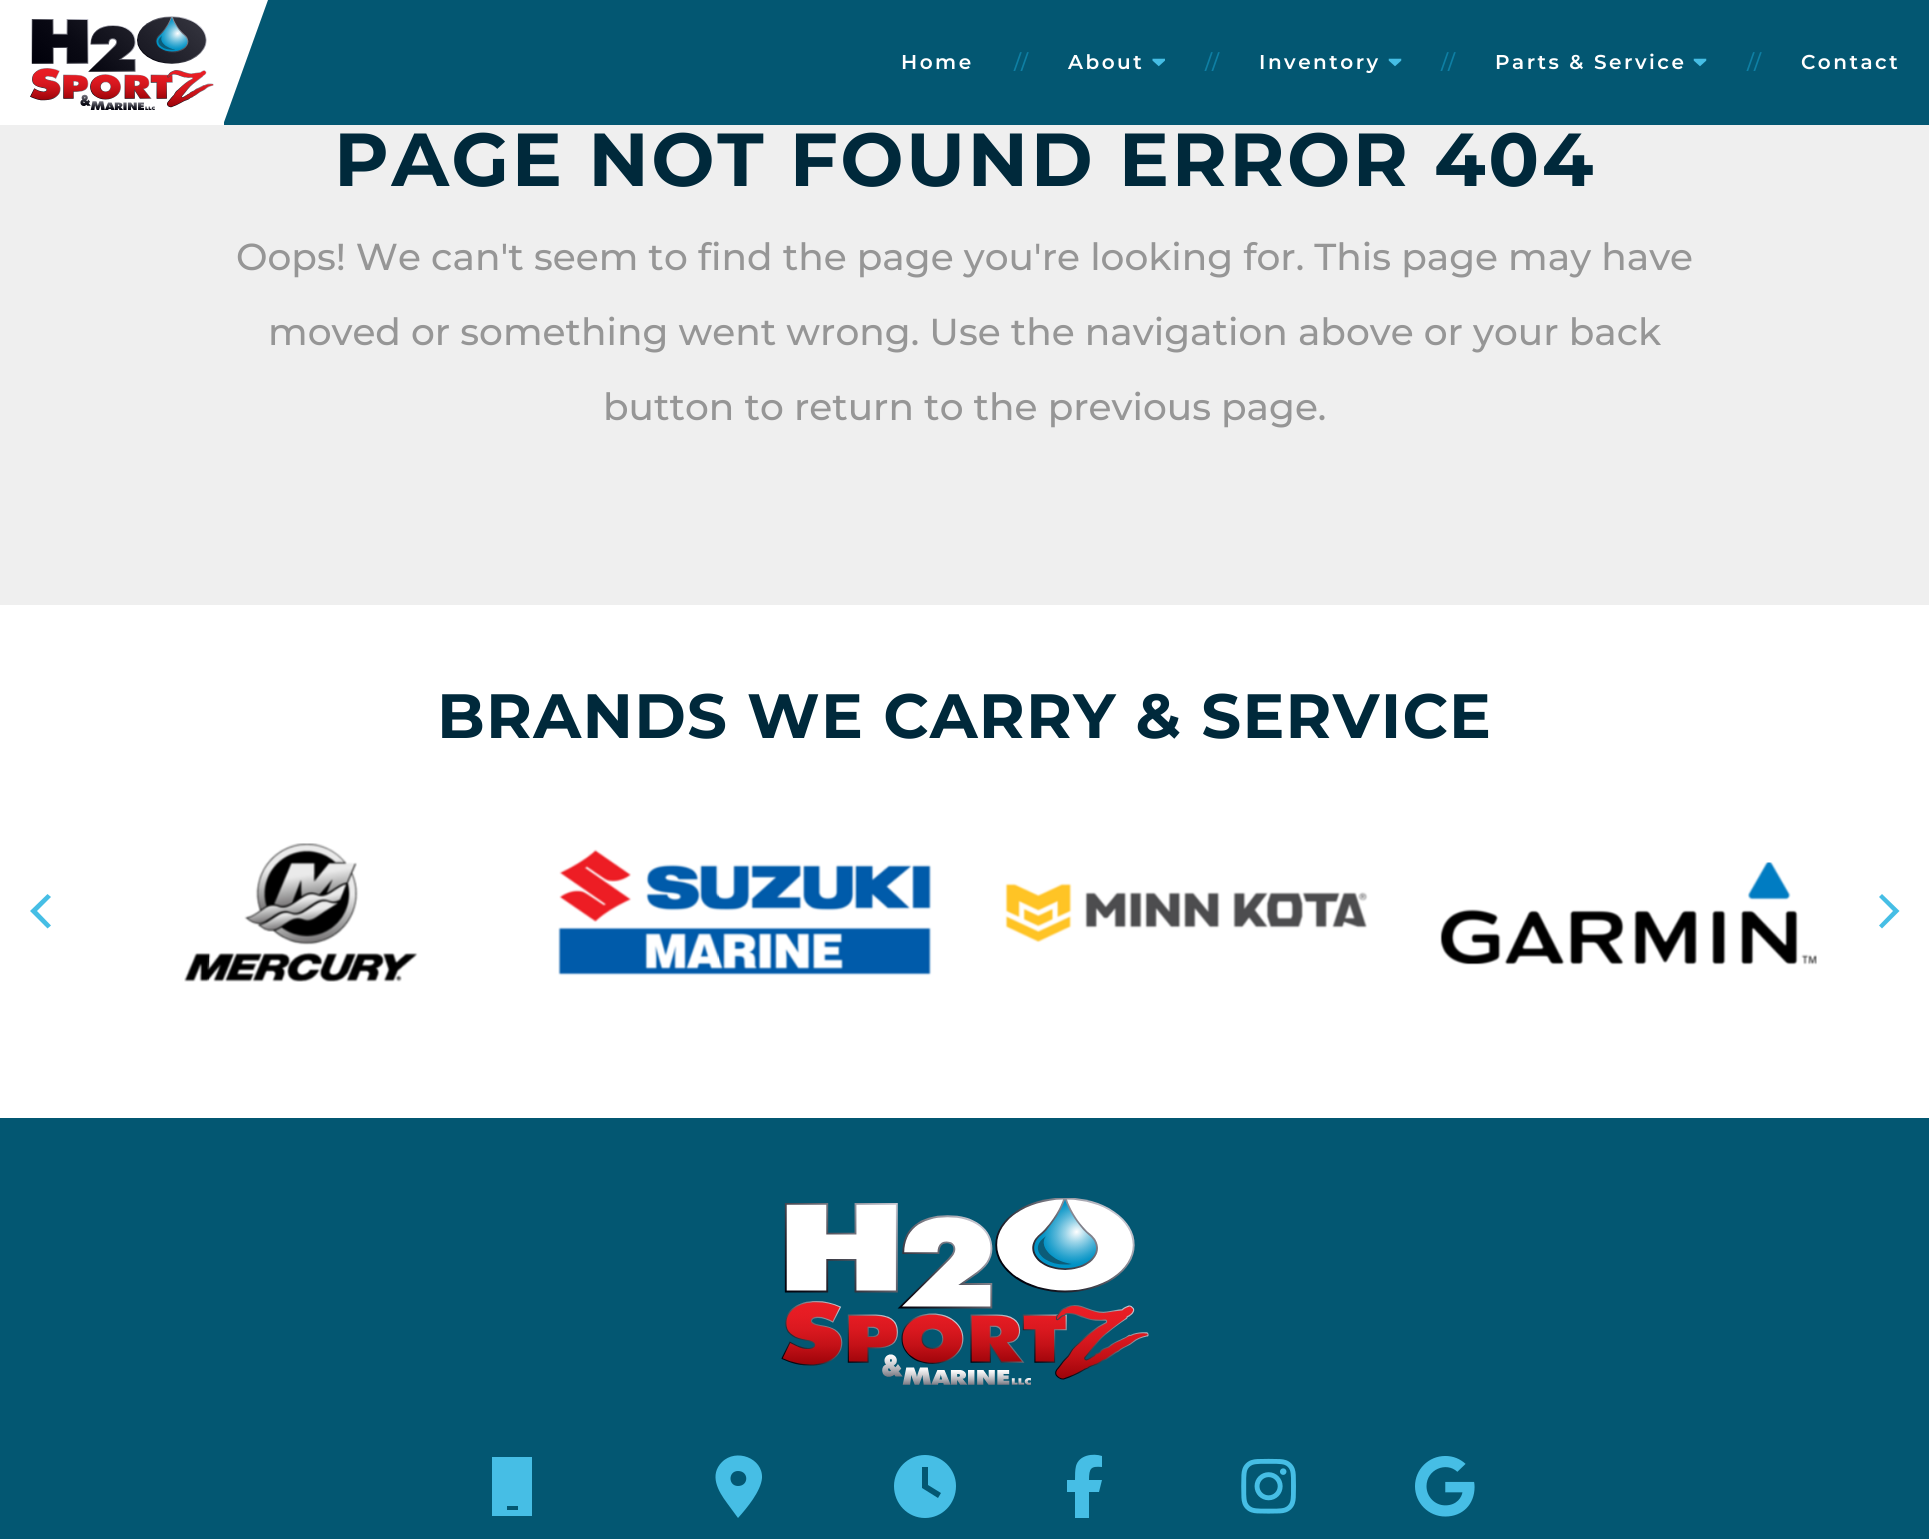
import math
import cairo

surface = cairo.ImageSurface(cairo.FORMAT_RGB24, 1929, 1539)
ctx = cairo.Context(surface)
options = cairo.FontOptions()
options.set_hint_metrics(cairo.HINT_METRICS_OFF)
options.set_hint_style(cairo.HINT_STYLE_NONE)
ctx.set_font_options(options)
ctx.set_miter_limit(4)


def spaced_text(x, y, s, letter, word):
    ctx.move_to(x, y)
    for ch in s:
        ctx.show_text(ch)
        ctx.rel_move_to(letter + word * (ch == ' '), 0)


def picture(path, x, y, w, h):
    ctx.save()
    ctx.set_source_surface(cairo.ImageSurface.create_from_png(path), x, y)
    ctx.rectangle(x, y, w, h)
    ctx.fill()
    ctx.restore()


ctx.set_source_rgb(0.937, 0.937, 0.937)
ctx.paint()
ctx.set_source_rgb(0.012, 0.341, 0.447)
ctx.rectangle(224, 0, 1705, 125)
ctx.fill()
ctx.set_source_rgb(1, 1, 1)
ctx.new_path()
ctx.move_to(197, -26)
ctx.line_to(268, 0)
ctx.line_to(223, 125)
ctx.line_to(151, 99)
ctx.close_path()
ctx.fill()
ctx.rectangle(0, 0, 224, 125)
ctx.fill()
picture("img1.png", 30, 16, 184, 94)
ctx.select_font_face("Montserrat SemiBold")
ctx.set_font_size(20)
spaced_text(901, 69, "Home", 2.5, 0)
ctx.select_font_face("Montserrat Medium")
ctx.set_source_rgb(0.055, 0.498, 0.643)
ctx.move_to(1014, 69)
ctx.show_text("//")
ctx.select_font_face("Montserrat SemiBold")
ctx.set_source_rgb(1, 1, 1)
spaced_text(1068, 69, "About", 2.5, 0)
picture("img2.png", 1152, 58, 13, 9)
ctx.select_font_face("Montserrat Medium")
ctx.set_source_rgb(0.055, 0.498, 0.643)
ctx.move_to(1205, 69)
ctx.show_text("//")
ctx.select_font_face("Montserrat SemiBold")
ctx.set_source_rgb(1, 1, 1)
spaced_text(1259, 69, "Inventory", 2.5, 0)
picture("img3.png", 1388, 58, 14, 9)
ctx.select_font_face("Montserrat Medium")
ctx.set_source_rgb(0.055, 0.498, 0.643)
ctx.move_to(1441, 69)
ctx.show_text("//")
ctx.select_font_face("Montserrat SemiBold")
ctx.set_source_rgb(1, 1, 1)
spaced_text(1495, 69, "Parts & Service", 2.5, 0)
picture("img3.png", 1693, 58, 14, 9)
ctx.select_font_face("Montserrat Medium")
ctx.set_source_rgb(0.055, 0.498, 0.643)
ctx.move_to(1747, 69)
ctx.show_text("//")
ctx.select_font_face("Montserrat SemiBold")
ctx.set_source_rgb(1, 1, 1)
spaced_text(1801, 69, "Contact", 2.5, 0)
ctx.select_font_face("Montserrat", cairo.FONT_SLANT_NORMAL, cairo.FONT_WEIGHT_BOLD)
ctx.set_font_size(75)
ctx.set_source_rgb(0, 0.161, 0.231)
spaced_text(334, 186, "PAGE NOT FOUND ERROR 404", 2.5, 0)
ctx.select_font_face("Montserrat Medium")
ctx.set_font_size(37.5)
ctx.set_source_rgb(0.588, 0.588, 0.588)
ctx.move_to(236, 270)
ctx.show_text("Oops! We can't seem to find the page you're looking for. This page may have")
ctx.move_to(268, 345)
ctx.show_text("moved or something went wrong. Use the navigation above or your back")
ctx.move_to(603, 420)
ctx.show_text("button to return to the previous page.")
ctx.set_source_rgb(1, 1, 1)
ctx.rectangle(0, 605, 1929, 513)
ctx.fill()
ctx.select_font_face("Montserrat", cairo.FONT_SLANT_NORMAL, cairo.FONT_WEIGHT_BOLD)
ctx.set_font_size(62.5)
ctx.set_source_rgb(0, 0.161, 0.231)
spaced_text(437, 738, "BRANDS WE CARRY & SERVICE", 1.25, 0)
ctx.set_source_rgb(0.275, 0.745, 0.898)
ctx.new_path()
ctx.move_to(30, 911)
ctx.line_to(47.5, 928.5)
ctx.line_to(51, 925.5)
ctx.line_to(37, 911)
ctx.line_to(51, 897)
ctx.line_to(47.5, 894)
ctx.close_path()
ctx.fill()
picture("img4.png", 184, 843, 234, 139)
picture("img5.png", 558, 849, 374, 127)
picture("img6.png", 1005, 883, 363, 60)
picture("img7.png", 1440, 862, 377, 103)
ctx.new_path()
ctx.move_to(1899.5, 911)
ctx.line_to(1882, 928.5)
ctx.line_to(1879, 925.5)
ctx.line_to(1893, 911)
ctx.line_to(1879, 897)
ctx.line_to(1882, 894)
ctx.close_path()
ctx.fill()
ctx.set_source_rgb(0.012, 0.341, 0.447)
ctx.rectangle(0, 1118, 1929, 421)
ctx.fill()
picture("img8.png", 781, 1198, 368, 187)
ctx.set_source_rgb(0.275, 0.745, 0.898)
ctx.new_path()
ctx.move_to(532, 1457)
ctx.line_to(492, 1457)
ctx.line_to(492, 1516)
ctx.line_to(532, 1516)
ctx.close_path()
ctx.move_to(509, 1506)
ctx.line_to(518, 1506)
ctx.line_to(518, 1510)
ctx.line_to(507, 1510)
ctx.line_to(507, 1506)
ctx.close_path()
ctx.fill()
ctx.new_path()
ctx.move_to(738, 1518)
ctx.curve_to(747, 1508, 761, 1491, 762, 1478)
ctx.curve_to(763, 1458, 736, 1448, 722, 1462)
ctx.curve_to(709, 1475, 718, 1491, 727, 1503)
ctx.close_path()
ctx.move_to(738, 1471)
ctx.curve_to(749, 1471, 749, 1486, 738, 1486)
ctx.curve_to(728, 1486, 728, 1471, 738, 1471)
ctx.close_path()
ctx.fill()
ctx.new_path()
ctx.move_to(925, 1455)
ctx.curve_to(942, 1455, 956, 1469, 956, 1486)
ctx.curve_to(956, 1504, 942, 1518, 925, 1518)
ctx.curve_to(908, 1518, 894, 1504, 894, 1486)
ctx.curve_to(894, 1469, 908, 1455, 925, 1455)
ctx.close_path()
ctx.move_to(922, 1470)
ctx.line_to(922, 1488)
ctx.line_to(938, 1498)
ctx.line_to(941, 1493)
ctx.line_to(928, 1485)
ctx.line_to(928, 1467)
ctx.line_to(922, 1467)
ctx.close_path()
ctx.fill()
ctx.new_path()
ctx.move_to(1075, 1492)
ctx.line_to(1075, 1518)
ctx.line_to(1089, 1518)
ctx.line_to(1089, 1492)
ctx.line_to(1099, 1492)
ctx.line_to(1102, 1480)
ctx.line_to(1089, 1480)
ctx.curve_to(1089, 1468, 1091, 1466, 1102, 1467)
ctx.line_to(1102, 1456)
ctx.curve_to(1093, 1453, 1079, 1455, 1076, 1466)
ctx.curve_to(1075, 1470, 1075, 1475, 1075, 1480)
ctx.line_to(1067, 1480)
ctx.line_to(1067, 1492)
ctx.close_path()
ctx.fill()
picture("img9.png", 1241, 1458, 55, 56)
picture("img10.png", 1415, 1456, 60, 61)
surface.write_to_png("page.png")
